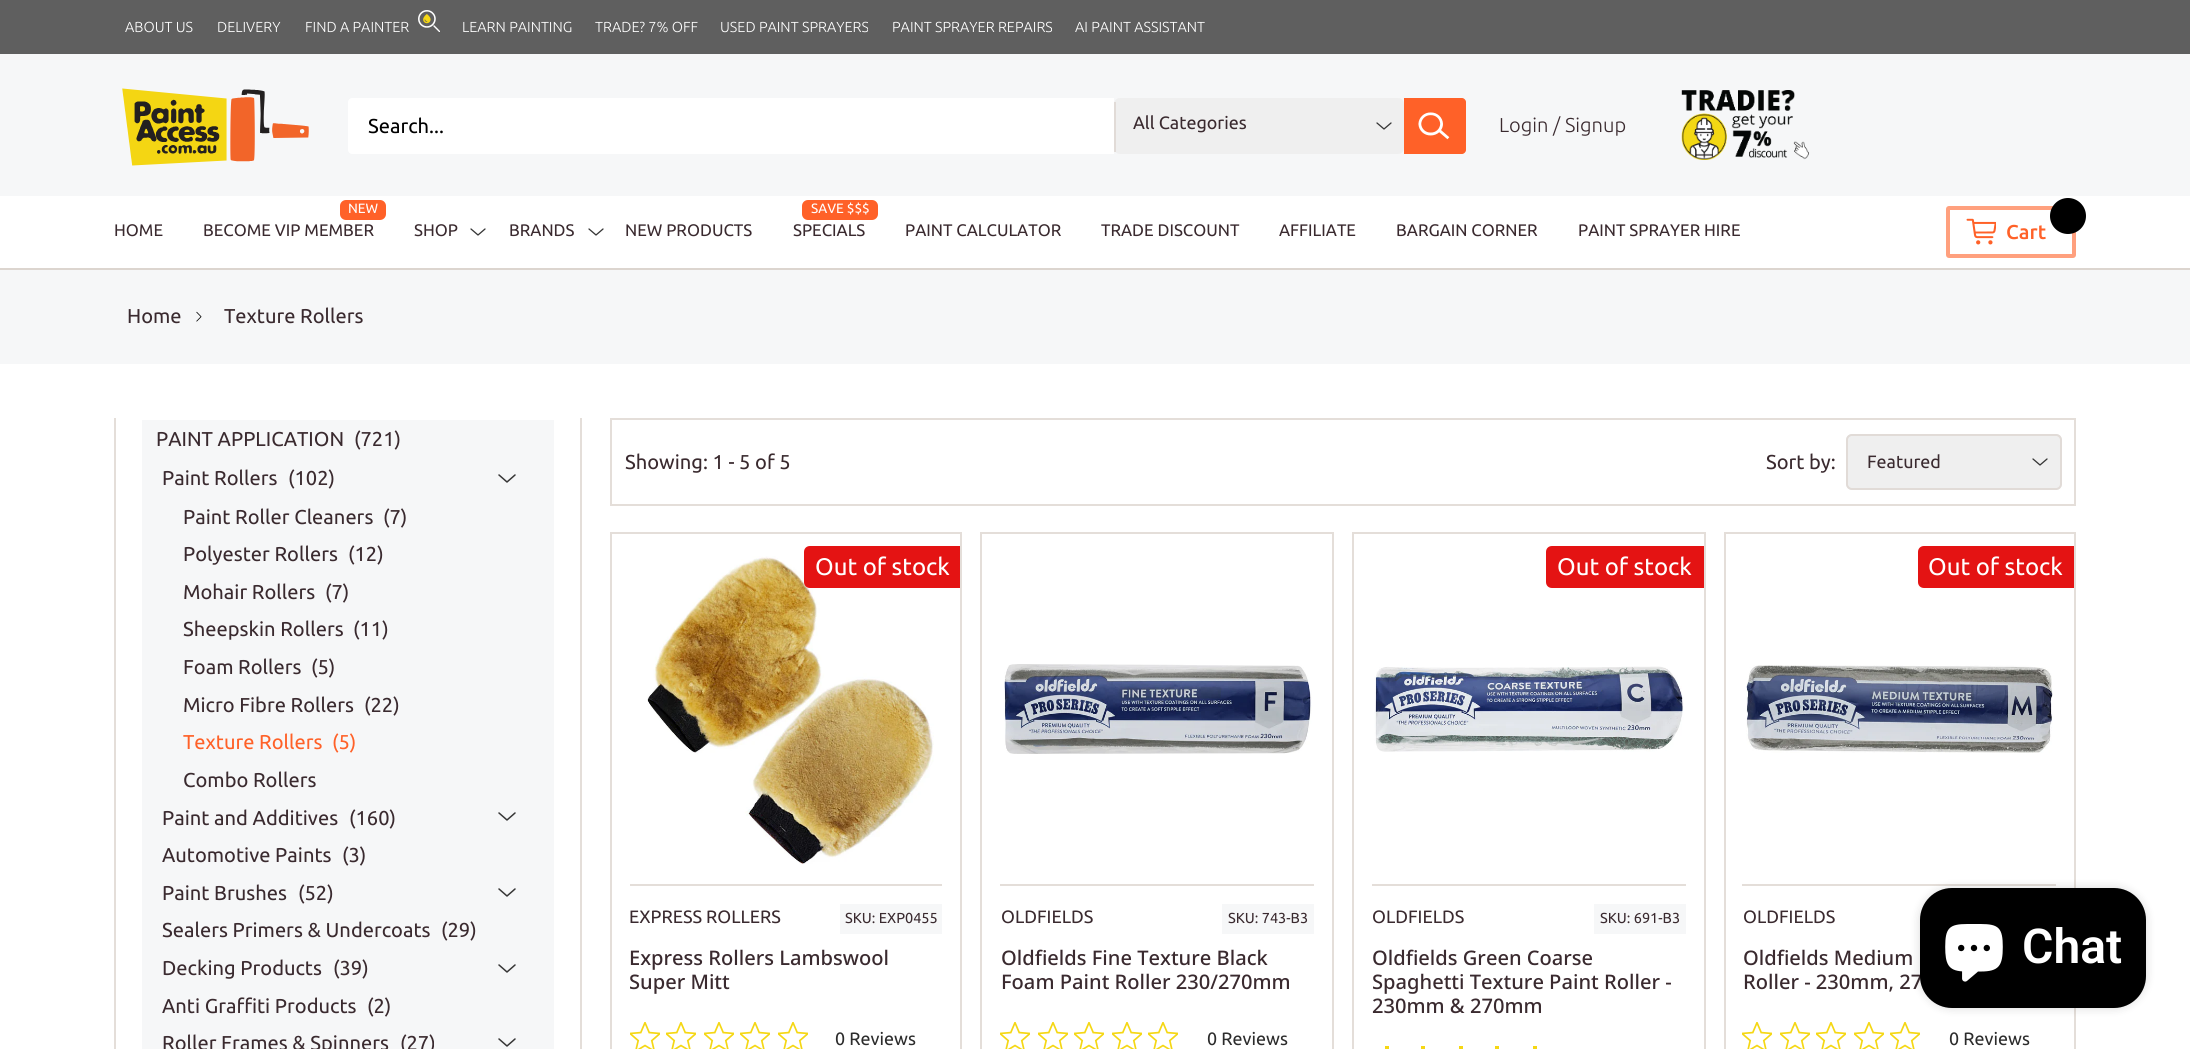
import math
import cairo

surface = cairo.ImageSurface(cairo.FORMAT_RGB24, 2190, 1049)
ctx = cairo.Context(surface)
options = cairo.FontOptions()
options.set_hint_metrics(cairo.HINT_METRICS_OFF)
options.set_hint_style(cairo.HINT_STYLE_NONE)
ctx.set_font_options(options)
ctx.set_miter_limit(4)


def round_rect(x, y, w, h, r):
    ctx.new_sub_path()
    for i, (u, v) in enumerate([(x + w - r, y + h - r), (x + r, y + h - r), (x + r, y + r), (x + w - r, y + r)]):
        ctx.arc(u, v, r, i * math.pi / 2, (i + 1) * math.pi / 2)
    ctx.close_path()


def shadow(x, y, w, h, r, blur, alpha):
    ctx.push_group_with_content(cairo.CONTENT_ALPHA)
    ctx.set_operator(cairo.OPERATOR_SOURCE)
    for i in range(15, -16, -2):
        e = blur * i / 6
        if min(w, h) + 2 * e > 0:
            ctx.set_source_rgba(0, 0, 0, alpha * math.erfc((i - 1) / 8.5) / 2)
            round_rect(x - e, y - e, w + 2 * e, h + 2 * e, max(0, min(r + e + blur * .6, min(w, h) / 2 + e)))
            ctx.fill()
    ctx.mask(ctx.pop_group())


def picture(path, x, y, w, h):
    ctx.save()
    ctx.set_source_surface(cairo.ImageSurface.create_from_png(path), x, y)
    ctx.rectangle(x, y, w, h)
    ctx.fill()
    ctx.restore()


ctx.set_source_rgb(1, 1, 1)
ctx.paint()
ctx.set_source_rgb(0.373, 0.373, 0.373)
ctx.rectangle(0, 0, 2190, 54)
ctx.fill()
ctx.select_font_face("Ubuntu Light")
ctx.set_font_size(14.5)
ctx.set_source_rgb(1, 1, 1)
ctx.move_to(125, 32)
ctx.show_text("ABOUT US")
ctx.move_to(217, 32)
ctx.show_text("DELIVERY")
ctx.move_to(305, 32)
ctx.show_text("FIND A PAINTER")
picture("img1.png", 418, 10, 22, 22)
ctx.move_to(462, 32)
ctx.show_text("LEARN PAINTING")
ctx.move_to(595, 32)
ctx.show_text("TRADE? 7% OFF")
ctx.move_to(720, 32)
ctx.show_text("USED PAINT SPRAYERS")
ctx.move_to(892, 32)
ctx.show_text("PAINT SPRAYER REPAIRS")
ctx.move_to(1075, 32)
ctx.show_text("AI PAINT ASSISTANT")
ctx.set_source_rgb(0.961, 0.965, 0.969)
ctx.rectangle(0, 54, 2190, 142)
ctx.fill()
picture("img2.png", 122, 88, 187, 78)
ctx.set_source_rgb(1, 1, 1)
ctx.new_path()
ctx.move_to(352, 98)
ctx.line_to(1114, 98)
ctx.line_to(1114, 154)
ctx.line_to(352, 154)
ctx.curve_to(350, 154, 348, 152, 348, 150)
ctx.line_to(348, 102)
ctx.curve_to(348, 100, 350, 98, 352, 98)
ctx.close_path()
ctx.fill()
ctx.select_font_face("Ubuntu")
ctx.set_font_size(20.1)
ctx.set_source_rgb(0, 0, 0)
ctx.move_to(368, 133)
ctx.show_text("Search...")
ctx.set_source_rgb(0.937, 0.937, 0.937)
round_rect(1114, 98, 290, 56, 6)
ctx.fill()
ctx.new_path()
ctx.move_to(1377, 123)
ctx.line_to(1384, 129)
ctx.line_to(1391, 123)
ctx.set_source_rgb(0.212, 0.212, 0.212)
ctx.set_line_width(1.3)
ctx.set_line_cap(cairo.LINE_CAP_ROUND)
ctx.set_line_join(cairo.LINE_JOIN_ROUND)
ctx.stroke()
ctx.set_source_rgba(0.867, 0.839, 0.816, 0.8)
ctx.rectangle(1114, 102, 2, 50)
ctx.fill()
ctx.set_font_size(17.9)
ctx.set_source_rgb(0.227, 0.165, 0.184)
ctx.move_to(1133, 129)
ctx.show_text("All Categories")
ctx.set_source_rgb(1, 0.38, 0.157)
ctx.new_path()
ctx.move_to(1404, 98)
ctx.line_to(1462, 98)
ctx.curve_to(1464, 98, 1466, 100, 1466, 102)
ctx.line_to(1466, 150)
ctx.curve_to(1466, 152, 1464, 154, 1462, 154)
ctx.line_to(1404, 154)
ctx.close_path()
ctx.fill()
picture("img3.png", 1418, 112, 32, 28)
ctx.select_font_face("Ubuntu Light")
ctx.set_font_size(20.1)
ctx.set_source_rgb(0.227, 0.165, 0.184)
ctx.move_to(1499, 132)
ctx.show_text("Login / Signup")
picture("img4.png", 1681, 90, 128, 70)
ctx.set_source_rgb(0.863, 0.835, 0.812)
ctx.rectangle(0, 268, 2190, 2)
ctx.fill()
ctx.select_font_face("Ubuntu")
ctx.set_font_size(16.75)
ctx.set_source_rgb(0.227, 0.165, 0.184)
ctx.move_to(114, 236)
ctx.show_text("HOME")
ctx.set_source_rgb(1, 0.38, 0.157)
round_rect(340, 200, 46, 20, 6)
ctx.fill()
ctx.set_font_size(13.5)
ctx.set_source_rgb(1, 1, 1)
ctx.move_to(348, 213)
ctx.show_text("NEW")
ctx.set_font_size(16.75)
ctx.set_source_rgb(0.227, 0.165, 0.184)
ctx.move_to(203, 236)
ctx.show_text("BECOME VIP MEMBER")
ctx.new_path()
ctx.move_to(471, 229)
ctx.line_to(478, 235)
ctx.line_to(485, 229)
ctx.set_source_rgb(0.212, 0.212, 0.212)
ctx.stroke()
ctx.set_source_rgb(0.227, 0.165, 0.184)
ctx.move_to(414, 236)
ctx.show_text("SHOP")
ctx.new_path()
ctx.move_to(589, 229)
ctx.line_to(596, 235)
ctx.line_to(603, 229)
ctx.set_source_rgb(0.212, 0.212, 0.212)
ctx.stroke()
ctx.set_source_rgb(0.227, 0.165, 0.184)
ctx.move_to(509, 236)
ctx.show_text("BRANDS")
ctx.move_to(625, 236)
ctx.show_text("NEW PRODUCTS")
ctx.set_source_rgb(1, 0.38, 0.157)
round_rect(802, 200, 76, 20, 6)
ctx.fill()
ctx.set_font_size(13.5)
ctx.set_source_rgb(1, 1, 1)
ctx.move_to(811, 213)
ctx.show_text("SAVE $$$")
ctx.set_font_size(16.75)
ctx.set_source_rgb(0.227, 0.165, 0.184)
ctx.move_to(793, 236)
ctx.show_text("SPECIALS")
ctx.move_to(905, 236)
ctx.show_text("PAINT CALCULATOR")
ctx.move_to(1101, 236)
ctx.show_text("TRADE DISCOUNT")
ctx.move_to(1279, 236)
ctx.show_text("AFFILIATE")
ctx.move_to(1396, 236)
ctx.show_text("BARGAIN CORNER")
ctx.move_to(1578, 236)
ctx.show_text("PAINT SPRAYER HIRE")
picture("img5.png", 1966, 218, 30, 27)
round_rect(1948, 208, 126, 48, 1)
ctx.set_source_rgb(1, 0.627, 0.494)
ctx.set_line_width(4)
ctx.set_line_cap(cairo.LINE_CAP_BUTT)
ctx.set_line_join(cairo.LINE_JOIN_MITER)
ctx.stroke()
ctx.select_font_face("Ubuntu Medium")
ctx.set_font_size(20.1)
ctx.set_source_rgb(1, 0.38, 0.157)
ctx.move_to(2006, 239)
ctx.show_text("Cart")
ctx.set_source_rgb(0, 0, 0)
ctx.new_path()
ctx.arc(2068, 216, 18, 0, 2 * math.pi)
ctx.fill()
ctx.set_source_rgb(0.961, 0.965, 0.969)
ctx.rectangle(0, 270, 2190, 94)
ctx.fill()
picture("img6.png", 196, 311, 6, 11)
ctx.select_font_face("Ubuntu")
ctx.set_source_rgb(0.227, 0.165, 0.184)
ctx.move_to(127, 323)
ctx.show_text("Home")
ctx.move_to(224, 323)
ctx.show_text("Texture Rollers")
ctx.save()
ctx.rectangle(114, 418, 468, 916)
ctx.clip()
ctx.rectangle(115, 391, 466, 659)
ctx.set_source_rgb(0.894, 0.871, 0.851)
ctx.set_line_width(2)
ctx.stroke()
ctx.restore()
ctx.set_source_rgb(0.961, 0.965, 0.969)
ctx.rectangle(142, 420, 412, 629)
ctx.fill()
ctx.set_source_rgb(0.227, 0.165, 0.184)
ctx.move_to(156, 446)
ctx.show_text("PAINT APPLICATION")
ctx.move_to(354, 446)
ctx.show_text("(721)")
ctx.move_to(162, 485)
ctx.show_text("Paint Rollers")
ctx.move_to(288, 485)
ctx.show_text("(102)")
ctx.new_path()
ctx.move_to(499, 475)
ctx.line_to(507, 482)
ctx.line_to(515, 475)
ctx.set_source_rgb(0.212, 0.212, 0.212)
ctx.set_line_width(1.5)
ctx.set_line_cap(cairo.LINE_CAP_ROUND)
ctx.set_line_join(cairo.LINE_JOIN_ROUND)
ctx.stroke()
ctx.set_source_rgb(0.227, 0.165, 0.184)
ctx.move_to(183, 524)
ctx.show_text("Paint Roller Cleaners")
ctx.move_to(383, 524)
ctx.show_text("(7)")
ctx.move_to(183, 561)
ctx.show_text("Polyester Rollers")
ctx.move_to(348, 561)
ctx.show_text("(12)")
ctx.move_to(183, 599)
ctx.show_text("Mohair Rollers")
ctx.move_to(325, 599)
ctx.show_text("(7)")
ctx.move_to(183, 636)
ctx.show_text("Sheepskin Rollers")
ctx.move_to(353, 636)
ctx.show_text("(11)")
ctx.move_to(183, 674)
ctx.show_text("Foam Rollers")
ctx.move_to(311, 674)
ctx.show_text("(5)")
ctx.move_to(183, 712)
ctx.show_text("Micro Fibre Rollers")
ctx.move_to(364, 712)
ctx.show_text("(22)")
ctx.set_source_rgb(1, 0.38, 0.157)
ctx.move_to(183, 749)
ctx.show_text("Texture Rollers")
ctx.move_to(332, 749)
ctx.show_text("(5)")
ctx.set_source_rgb(0.227, 0.165, 0.184)
ctx.move_to(183, 787)
ctx.show_text("Combo Rollers")
ctx.move_to(162, 825)
ctx.show_text("Paint and Additives")
ctx.move_to(349, 825)
ctx.show_text("(160)")
ctx.new_path()
ctx.move_to(499, 813)
ctx.line_to(507, 820)
ctx.line_to(515, 813)
ctx.set_source_rgb(0.212, 0.212, 0.212)
ctx.stroke()
ctx.set_source_rgb(0.227, 0.165, 0.184)
ctx.move_to(162, 862)
ctx.show_text("Automotive Paints")
ctx.move_to(342, 862)
ctx.show_text("(3)")
ctx.move_to(162, 900)
ctx.show_text("Paint Brushes")
ctx.move_to(298, 900)
ctx.show_text("(52)")
ctx.new_path()
ctx.move_to(499, 889)
ctx.line_to(507, 896)
ctx.line_to(515, 889)
ctx.set_source_rgb(0.212, 0.212, 0.212)
ctx.stroke()
ctx.set_source_rgb(0.227, 0.165, 0.184)
ctx.move_to(162, 937)
ctx.show_text("Sealers Primers & Undercoats")
ctx.move_to(441, 937)
ctx.show_text("(29)")
ctx.move_to(162, 975)
ctx.show_text("Decking Products")
ctx.move_to(333, 975)
ctx.show_text("(39)")
ctx.new_path()
ctx.move_to(499, 965)
ctx.line_to(507, 972)
ctx.line_to(515, 965)
ctx.set_source_rgb(0.212, 0.212, 0.212)
ctx.stroke()
ctx.set_source_rgb(0.227, 0.165, 0.184)
ctx.move_to(162, 1013)
ctx.show_text("Anti Graffiti Products")
ctx.move_to(367, 1013)
ctx.show_text("(2)")
ctx.move_to(162, 1050)
ctx.show_text("Roller Frames & Spinners")
ctx.move_to(400, 1050)
ctx.show_text("(27)")
ctx.new_path()
ctx.move_to(499, 1039)
ctx.line_to(507, 1046)
ctx.line_to(515, 1039)
ctx.set_source_rgb(0.212, 0.212, 0.212)
ctx.stroke()
ctx.rectangle(611, 419, 1464, 86)
ctx.set_source_rgb(0.894, 0.871, 0.851)
ctx.set_line_width(2)
ctx.set_line_cap(cairo.LINE_CAP_BUTT)
ctx.set_line_join(cairo.LINE_JOIN_MITER)
ctx.stroke()
ctx.set_source_rgb(0.227, 0.165, 0.184)
ctx.move_to(625, 469)
ctx.show_text("Showing: 1 - 5 of 5")
ctx.move_to(1766, 469)
ctx.show_text("Sort by:")
ctx.set_source_rgb(0.937, 0.937, 0.937)
round_rect(1846, 434, 216, 56, 6)
ctx.fill()
ctx.new_path()
ctx.move_to(2033, 459)
ctx.line_to(2040, 465)
ctx.line_to(2047, 459)
ctx.set_source_rgb(0.212, 0.212, 0.212)
ctx.set_line_width(1.3)
ctx.set_line_cap(cairo.LINE_CAP_ROUND)
ctx.set_line_join(cairo.LINE_JOIN_ROUND)
ctx.stroke()
round_rect(1847, 435, 214, 54, 5)
ctx.set_source_rgba(0.867, 0.839, 0.816, 0.8)
ctx.set_line_width(2)
ctx.set_line_cap(cairo.LINE_CAP_BUTT)
ctx.set_line_join(cairo.LINE_JOIN_MITER)
ctx.stroke()
ctx.set_font_size(17.9)
ctx.set_source_rgb(0.227, 0.165, 0.184)
ctx.move_to(1867, 468)
ctx.show_text("Featured")
ctx.rectangle(611, 533, 350, 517)
ctx.set_source_rgb(0.894, 0.871, 0.851)
ctx.stroke()
picture("img7.png", 647, 556, 287, 308)
ctx.set_source_rgb(0.894, 0.078, 0.078)
ctx.new_path()
ctx.move_to(810, 546)
ctx.line_to(960, 546)
ctx.line_to(960, 588)
ctx.line_to(810, 588)
ctx.curve_to(806.5, 588, 804, 585.5, 804, 582)
ctx.line_to(804, 552)
ctx.curve_to(804, 548.5, 806.5, 546, 810, 546)
ctx.close_path()
ctx.fill()
ctx.set_font_size(24)
ctx.set_source_rgb(1, 1, 1)
ctx.move_to(815, 575)
ctx.show_text("Out of stock")
ctx.set_source_rgb(0.894, 0.871, 0.851)
ctx.rectangle(630, 884, 312, 2)
ctx.fill()
ctx.set_font_size(17.9)
ctx.set_source_rgb(0.227, 0.165, 0.184)
ctx.move_to(629, 923)
ctx.show_text("EXPRESS ROLLERS")
ctx.set_source_rgb(0.961, 0.965, 0.969)
ctx.rectangle(840, 904, 102, 30)
ctx.fill()
ctx.set_font_size(14.5)
ctx.set_source_rgb(0.227, 0.165, 0.184)
ctx.move_to(845, 923)
ctx.show_text("SKU: EXP0455")
ctx.select_font_face("Noto Sans Medium")
ctx.set_font_size(20.1)
ctx.move_to(629, 965)
ctx.show_text("Express Rollers Lambswool")
ctx.move_to(629, 989)
ctx.show_text("Super Mitt")
picture("img8.png", 630, 1022, 30, 27)
picture("img8.png", 666, 1022, 30, 27)
picture("img8.png", 704, 1022, 30, 27)
picture("img8.png", 740, 1022, 30, 27)
picture("img8.png", 778, 1022, 30, 27)
ctx.select_font_face("Ubuntu")
ctx.set_font_size(17.9)
ctx.set_source_rgb(0.173, 0.173, 0.173)
ctx.move_to(835, 1045)
ctx.show_text("0 Reviews")
ctx.rectangle(981, 533, 352, 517)
ctx.set_source_rgb(0.894, 0.871, 0.851)
ctx.stroke()
picture("img9.png", 1004, 664, 308, 90)
ctx.rectangle(1000, 884, 314, 2)
ctx.fill()
ctx.set_source_rgb(0.227, 0.165, 0.184)
ctx.move_to(1001, 923)
ctx.show_text("OLDFIELDS")
ctx.set_source_rgb(0.961, 0.965, 0.969)
ctx.rectangle(1222, 904, 92, 30)
ctx.fill()
ctx.set_font_size(14.5)
ctx.set_source_rgb(0.227, 0.165, 0.184)
ctx.move_to(1228, 923)
ctx.show_text("SKU: 743-B3")
ctx.select_font_face("Noto Sans Medium")
ctx.set_font_size(20.1)
ctx.move_to(1001, 965)
ctx.show_text("Oldfields Fine Texture Black")
ctx.move_to(1001, 989)
ctx.show_text("Foam Paint Roller 230/270mm")
picture("img8.png", 1000, 1022, 30, 27)
picture("img8.png", 1038, 1022, 30, 27)
picture("img8.png", 1074, 1022, 30, 27)
picture("img8.png", 1112, 1022, 30, 27)
picture("img8.png", 1148, 1022, 30, 27)
ctx.select_font_face("Ubuntu")
ctx.set_font_size(17.9)
ctx.set_source_rgb(0.173, 0.173, 0.173)
ctx.move_to(1207, 1045)
ctx.show_text("0 Reviews")
ctx.rectangle(1353, 533, 352, 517)
ctx.set_source_rgb(0.894, 0.871, 0.851)
ctx.stroke()
ctx.set_source_rgb(0.894, 0.078, 0.078)
ctx.new_path()
ctx.move_to(1552, 546)
ctx.line_to(1704, 546)
ctx.line_to(1704, 588)
ctx.line_to(1552, 588)
ctx.curve_to(1548.5, 588, 1546, 585.5, 1546, 582)
ctx.line_to(1546, 552)
ctx.curve_to(1546, 548.5, 1548.5, 546, 1552, 546)
ctx.close_path()
ctx.fill()
ctx.set_font_size(24)
ctx.set_source_rgb(1, 1, 1)
ctx.move_to(1557, 575)
ctx.show_text("Out of stock")
picture("img10.png", 1374, 666, 310, 86)
ctx.set_source_rgb(0.894, 0.871, 0.851)
ctx.rectangle(1372, 884, 314, 2)
ctx.fill()
ctx.set_font_size(17.9)
ctx.set_source_rgb(0.227, 0.165, 0.184)
ctx.move_to(1372, 923)
ctx.show_text("OLDFIELDS")
ctx.set_source_rgb(0.961, 0.965, 0.969)
ctx.rectangle(1594, 904, 92, 30)
ctx.fill()
ctx.set_font_size(14.5)
ctx.set_source_rgb(0.227, 0.165, 0.184)
ctx.move_to(1600, 923)
ctx.show_text("SKU: 691-B3")
ctx.select_font_face("Noto Sans Medium")
ctx.set_font_size(20.1)
ctx.move_to(1372, 965)
ctx.show_text("Oldfields Green Coarse")
ctx.move_to(1372, 989)
ctx.show_text("Spaghetti Texture Paint Roller -")
ctx.move_to(1372, 1013)
ctx.show_text("230mm & 270mm")
ctx.set_source_rgb(0.961, 0.843, 0.078)
ctx.rectangle(1385, 1046, 4, 3)
ctx.fill()
ctx.rectangle(1421, 1046, 4, 3)
ctx.fill()
ctx.rectangle(1459, 1046, 4, 3)
ctx.fill()
ctx.rectangle(1495, 1046, 4, 3)
ctx.fill()
ctx.rectangle(1533, 1046, 4, 3)
ctx.fill()
ctx.rectangle(1725, 533, 350, 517)
ctx.set_source_rgb(0.894, 0.871, 0.851)
ctx.stroke()
ctx.set_source_rgb(0.894, 0.078, 0.078)
ctx.new_path()
ctx.move_to(1924, 546)
ctx.line_to(2074, 546)
ctx.line_to(2074, 588)
ctx.line_to(1924, 588)
ctx.curve_to(1920.5, 588, 1918, 585.5, 1918, 582)
ctx.line_to(1918, 552)
ctx.curve_to(1918, 548.5, 1920.5, 546, 1924, 546)
ctx.close_path()
ctx.fill()
ctx.select_font_face("Ubuntu")
ctx.set_font_size(24)
ctx.set_source_rgb(1, 1, 1)
ctx.move_to(1928, 575)
ctx.show_text("Out of stock")
picture("img11.png", 1746, 665, 307, 88)
ctx.set_source_rgb(0.894, 0.871, 0.851)
ctx.rectangle(1742, 884, 314, 2)
ctx.fill()
ctx.set_font_size(17.9)
ctx.set_source_rgb(0.227, 0.165, 0.184)
ctx.move_to(1743, 923)
ctx.show_text("OLDFIELDS")
ctx.select_font_face("Noto Sans Medium")
ctx.set_font_size(20.1)
ctx.move_to(1743, 965)
ctx.show_text("Oldfields Medium")
ctx.move_to(1743, 989)
ctx.show_text("Roller - 230mm, 27")
picture("img8.png", 1742, 1022, 30, 27)
picture("img8.png", 1780, 1022, 30, 27)
picture("img8.png", 1816, 1022, 30, 27)
picture("img8.png", 1854, 1022, 30, 27)
picture("img8.png", 1890, 1022, 30, 27)
ctx.select_font_face("Ubuntu")
ctx.set_font_size(17.9)
ctx.set_source_rgb(0.173, 0.173, 0.173)
ctx.move_to(1949, 1045)
ctx.show_text("0 Reviews")
ctx.set_source_rgb(0, 0, 0)
shadow(1920, 888, 226, 120, 32, 5, 0.15)
ctx.set_source_rgb(0, 0, 0)
round_rect(1920, 888, 226, 120, 32)
ctx.fill()
picture("img12.png", 1945, 924, 58, 58)
ctx.select_font_face("Roboto SemiBold")
ctx.set_font_size(48)
ctx.set_source_rgb(1, 1, 1)
ctx.move_to(2022, 963)
ctx.show_text("Chat")
surface.write_to_png("page.png")
